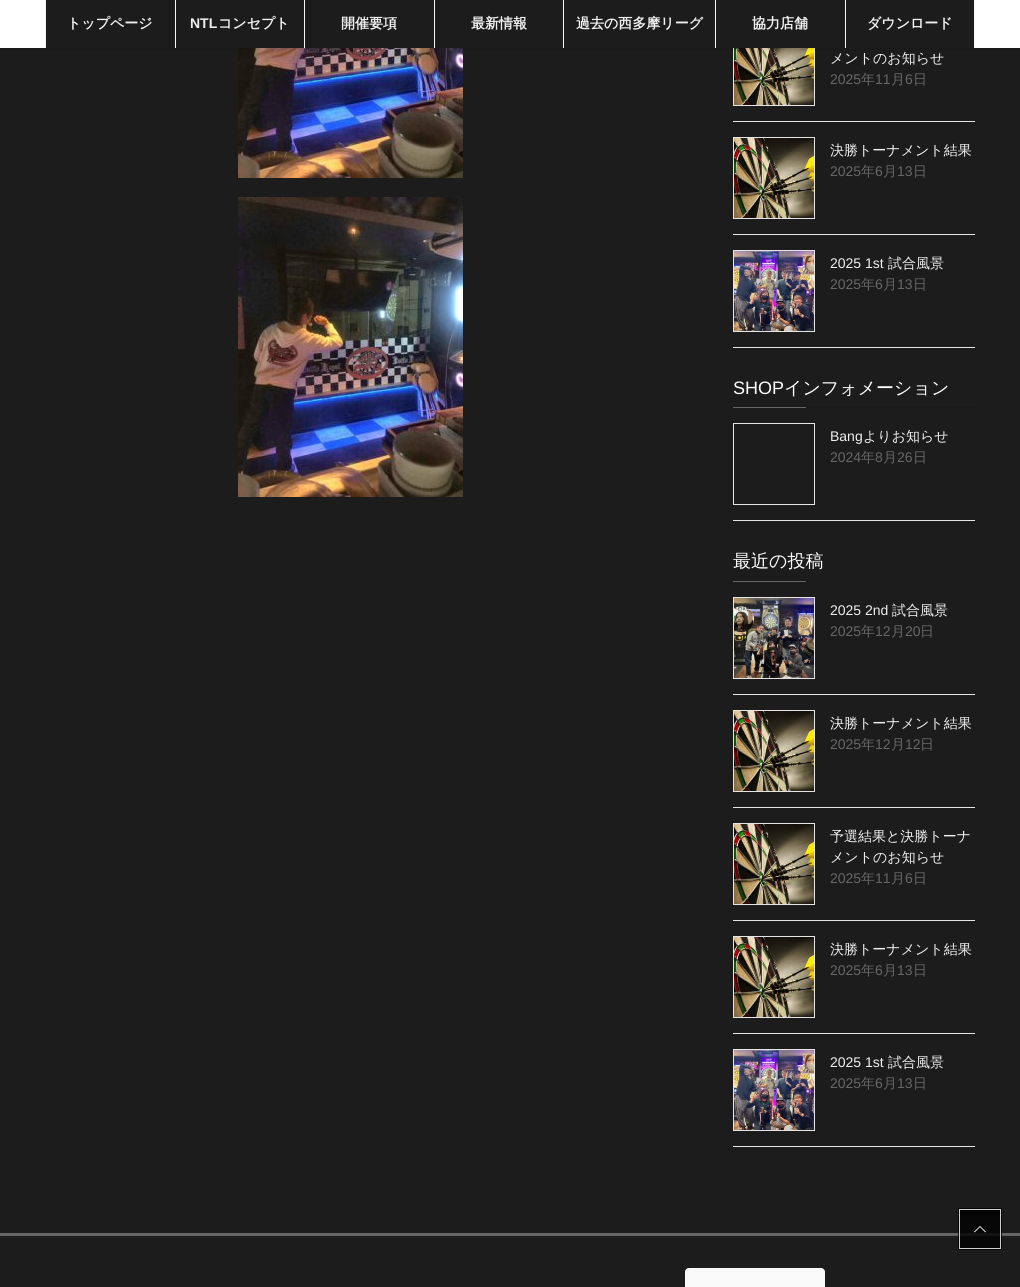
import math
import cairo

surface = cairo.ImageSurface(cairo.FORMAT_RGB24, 1020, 1287)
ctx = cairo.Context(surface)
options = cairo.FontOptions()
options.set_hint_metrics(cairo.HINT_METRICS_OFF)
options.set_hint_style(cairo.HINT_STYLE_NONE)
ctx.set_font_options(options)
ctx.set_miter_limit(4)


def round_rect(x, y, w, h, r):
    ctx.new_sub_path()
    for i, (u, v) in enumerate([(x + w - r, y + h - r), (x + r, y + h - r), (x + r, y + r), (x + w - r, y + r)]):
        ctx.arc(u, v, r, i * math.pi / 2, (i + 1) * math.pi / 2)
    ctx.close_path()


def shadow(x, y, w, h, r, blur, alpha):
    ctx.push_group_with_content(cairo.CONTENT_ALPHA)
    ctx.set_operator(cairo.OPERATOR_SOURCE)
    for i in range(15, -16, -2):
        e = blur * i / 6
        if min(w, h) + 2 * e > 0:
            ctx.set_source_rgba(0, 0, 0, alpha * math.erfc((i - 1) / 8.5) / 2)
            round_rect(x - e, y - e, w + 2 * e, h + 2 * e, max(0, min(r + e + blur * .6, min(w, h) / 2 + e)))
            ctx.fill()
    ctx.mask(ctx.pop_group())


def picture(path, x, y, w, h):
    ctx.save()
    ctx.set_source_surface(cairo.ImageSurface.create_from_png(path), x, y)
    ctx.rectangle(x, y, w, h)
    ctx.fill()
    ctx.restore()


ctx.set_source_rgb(0.11, 0.11, 0.11)
ctx.paint()
ctx.set_source_rgb(0.024, 0.024, 0.024)
ctx.rectangle(960, 1210, 40, 38)
ctx.fill()
picture("img1.png", 238, 48, 225, 130)
ctx.rectangle(733.5, 24.5, 81, 81)
ctx.set_source_rgb(0.898, 0.898, 0.898)
ctx.set_line_width(1)
ctx.stroke()
picture("img3.png", 734, 48, 80, 57)
ctx.set_source_rgb(0, 0, 0)
shadow(0, 1, 1020, 48, 0, 1.5, 0.1)
ctx.set_source_rgb(1, 1, 1)
ctx.rectangle(0, 0, 1020, 48)
ctx.fill()
ctx.set_source_rgb(0.961, 0.961, 0.961)
ctx.rectangle(45, 0, 1, 48)
ctx.fill()
ctx.set_source_rgb(0.11, 0.11, 0.11)
ctx.rectangle(46, 0, 129, 48)
ctx.fill()
ctx.select_font_face("WenQuanYi Zen Hei", cairo.FONT_SLANT_NORMAL, cairo.FONT_WEIGHT_BOLD)
ctx.set_font_size(14)
ctx.set_source_rgb(0.937, 0.937, 0.937)
ctx.move_to(67, 28)
ctx.show_text("トップページ")
ctx.set_source_rgb(0.961, 0.961, 0.961)
ctx.rectangle(175, 0, 1, 48)
ctx.fill()
ctx.set_source_rgb(0.11, 0.11, 0.11)
ctx.rectangle(176, 0, 128, 48)
ctx.fill()
ctx.select_font_face("Liberation Sans", cairo.FONT_SLANT_NORMAL, cairo.FONT_WEIGHT_BOLD)
ctx.set_source_rgb(0.937, 0.937, 0.937)
ctx.move_to(190, 28)
ctx.show_text("NTL")
ctx.select_font_face("WenQuanYi Zen Hei", cairo.FONT_SLANT_NORMAL, cairo.FONT_WEIGHT_BOLD)
ctx.move_to(218, 28)
ctx.show_text("コンセプト")
ctx.set_source_rgb(0.961, 0.961, 0.961)
ctx.rectangle(304, 0, 1, 48)
ctx.fill()
ctx.set_source_rgb(0.11, 0.11, 0.11)
ctx.rectangle(305, 0, 129, 48)
ctx.fill()
ctx.set_source_rgb(0.937, 0.937, 0.937)
ctx.move_to(341, 28)
ctx.show_text("開催要項")
ctx.set_source_rgb(0.961, 0.961, 0.961)
ctx.rectangle(434, 0, 1, 48)
ctx.fill()
ctx.set_source_rgb(0.11, 0.11, 0.11)
ctx.rectangle(435, 0, 128, 48)
ctx.fill()
ctx.set_source_rgb(0.937, 0.937, 0.937)
ctx.move_to(471, 28)
ctx.show_text("最新情報")
ctx.set_source_rgb(0.961, 0.961, 0.961)
ctx.rectangle(563, 0, 1, 48)
ctx.fill()
ctx.set_source_rgb(0.11, 0.11, 0.11)
ctx.rectangle(564, 0, 151, 48)
ctx.fill()
ctx.set_source_rgb(0.937, 0.937, 0.937)
ctx.move_to(576, 28)
ctx.show_text("過去の西多摩リーグ")
ctx.set_source_rgb(0.961, 0.961, 0.961)
ctx.rectangle(715, 0, 1, 48)
ctx.fill()
ctx.set_source_rgb(0.11, 0.11, 0.11)
ctx.rectangle(716, 0, 129, 48)
ctx.fill()
ctx.set_source_rgb(0.937, 0.937, 0.937)
ctx.move_to(752, 28)
ctx.show_text("協力店舗")
ctx.set_source_rgb(0.961, 0.961, 0.961)
ctx.rectangle(974, 0, 1, 48)
ctx.fill()
ctx.rectangle(845, 0, 1, 48)
ctx.fill()
ctx.set_source_rgb(0.11, 0.11, 0.11)
ctx.rectangle(846, 0, 128, 48)
ctx.fill()
ctx.set_source_rgb(0.937, 0.937, 0.937)
ctx.move_to(867, 28)
ctx.show_text("ダウンロード")
picture("img2.png", 238, 197, 225, 300)
ctx.set_source_rgb(0.898, 0.898, 0.898)
ctx.rectangle(733, 121, 242, 1)
ctx.fill()
ctx.select_font_face("WenQuanYi Zen Hei Medium")
ctx.set_source_rgb(0.937, 0.937, 0.937)
ctx.move_to(830, 63)
ctx.show_text("メントのお知らせ")
ctx.select_font_face("Liberation Sans")
ctx.set_source_rgb(0.4, 0.4, 0.4)
ctx.move_to(830, 84)
ctx.show_text("2025")
ctx.select_font_face("WenQuanYi Zen Hei Medium")
ctx.move_to(861, 84)
ctx.show_text("年")
ctx.select_font_face("Liberation Sans")
ctx.move_to(875, 84)
ctx.show_text("11")
ctx.select_font_face("WenQuanYi Zen Hei Medium")
ctx.move_to(891, 84)
ctx.show_text("月")
ctx.select_font_face("Liberation Sans")
ctx.move_to(905, 84)
ctx.show_text("6")
ctx.select_font_face("WenQuanYi Zen Hei Medium")
ctx.move_to(913, 84)
ctx.show_text("日")
ctx.set_source_rgb(0.898, 0.898, 0.898)
ctx.rectangle(733, 234, 242, 1)
ctx.fill()
ctx.rectangle(733.5, 137.5, 81, 81)
ctx.stroke()
picture("img4.png", 734, 138, 80, 80)
ctx.set_source_rgb(0.937, 0.937, 0.937)
ctx.move_to(830, 155)
ctx.show_text("決勝トーナメント結果")
ctx.select_font_face("Liberation Sans")
ctx.set_source_rgb(0.4, 0.4, 0.4)
ctx.move_to(830, 176)
ctx.show_text("2025")
ctx.select_font_face("WenQuanYi Zen Hei Medium")
ctx.move_to(861, 176)
ctx.show_text("年")
ctx.select_font_face("Liberation Sans")
ctx.move_to(875, 176)
ctx.show_text("6")
ctx.select_font_face("WenQuanYi Zen Hei Medium")
ctx.move_to(883, 176)
ctx.show_text("月")
ctx.select_font_face("Liberation Sans")
ctx.move_to(897, 176)
ctx.show_text("13")
ctx.select_font_face("WenQuanYi Zen Hei Medium")
ctx.move_to(913, 176)
ctx.show_text("日")
ctx.set_source_rgb(0.898, 0.898, 0.898)
ctx.rectangle(733, 347, 242, 1)
ctx.fill()
ctx.rectangle(733.5, 250.5, 81, 81)
ctx.stroke()
picture("img5.png", 734, 251, 80, 80)
ctx.select_font_face("Liberation Sans")
ctx.set_source_rgb(0.937, 0.937, 0.937)
ctx.move_to(830, 268)
ctx.show_text("2025 1st")
ctx.select_font_face("WenQuanYi Zen Hei Medium")
ctx.move_to(888, 268)
ctx.show_text("試合風景")
ctx.select_font_face("Liberation Sans")
ctx.set_source_rgb(0.4, 0.4, 0.4)
ctx.move_to(830, 289)
ctx.show_text("2025")
ctx.select_font_face("WenQuanYi Zen Hei Medium")
ctx.move_to(861, 289)
ctx.show_text("年")
ctx.select_font_face("Liberation Sans")
ctx.move_to(875, 289)
ctx.show_text("6")
ctx.select_font_face("WenQuanYi Zen Hei Medium")
ctx.move_to(883, 289)
ctx.show_text("月")
ctx.select_font_face("Liberation Sans")
ctx.move_to(897, 289)
ctx.show_text("13")
ctx.select_font_face("WenQuanYi Zen Hei Medium")
ctx.move_to(913, 289)
ctx.show_text("日")
ctx.set_source_rgb(0.098, 0.098, 0.098)
ctx.rectangle(806, 407, 169, 1)
ctx.fill()
ctx.select_font_face("Liberation Sans")
ctx.set_font_size(18)
ctx.set_source_rgb(1, 1, 1)
ctx.move_to(733, 394)
ctx.show_text("SHOP")
ctx.select_font_face("WenQuanYi Zen Hei Medium")
ctx.move_to(784, 394)
ctx.show_text("インフォメーション")
ctx.set_source_rgb(0.4, 0.4, 0.4)
ctx.rectangle(733, 407, 73, 1)
ctx.fill()
ctx.set_source_rgb(0.898, 0.898, 0.898)
ctx.rectangle(733, 520, 242, 1)
ctx.fill()
ctx.rectangle(733.5, 423.5, 81, 81)
ctx.stroke()
ctx.select_font_face("Liberation Sans")
ctx.set_font_size(14)
ctx.set_source_rgb(0.937, 0.937, 0.937)
ctx.move_to(830, 441)
ctx.show_text("Bang")
ctx.select_font_face("WenQuanYi Zen Hei Medium")
ctx.move_to(863, 441)
ctx.show_text("よりお知らせ")
ctx.select_font_face("Liberation Sans")
ctx.set_source_rgb(0.4, 0.4, 0.4)
ctx.move_to(830, 462)
ctx.show_text("2024")
ctx.select_font_face("WenQuanYi Zen Hei Medium")
ctx.move_to(861, 462)
ctx.show_text("年")
ctx.select_font_face("Liberation Sans")
ctx.move_to(875, 462)
ctx.show_text("8")
ctx.select_font_face("WenQuanYi Zen Hei Medium")
ctx.move_to(883, 462)
ctx.show_text("月")
ctx.select_font_face("Liberation Sans")
ctx.move_to(897, 462)
ctx.show_text("26")
ctx.select_font_face("WenQuanYi Zen Hei Medium")
ctx.move_to(913, 462)
ctx.show_text("日")
ctx.set_source_rgb(0.098, 0.098, 0.098)
ctx.rectangle(806, 581, 169, 1)
ctx.fill()
ctx.set_font_size(18)
ctx.set_source_rgb(1, 1, 1)
ctx.move_to(733, 567)
ctx.show_text("最近の投稿")
ctx.set_source_rgb(0.4, 0.4, 0.4)
ctx.rectangle(733, 581, 73, 1)
ctx.fill()
ctx.set_source_rgb(0.898, 0.898, 0.898)
ctx.rectangle(733, 694, 242, 1)
ctx.fill()
ctx.rectangle(733.5, 597.5, 81, 81)
ctx.stroke()
picture("img6.png", 734, 598, 80, 80)
ctx.select_font_face("Liberation Sans")
ctx.set_font_size(14)
ctx.set_source_rgb(0.937, 0.937, 0.937)
ctx.move_to(830, 615)
ctx.show_text("2025 2nd")
ctx.select_font_face("WenQuanYi Zen Hei Medium")
ctx.move_to(892, 615)
ctx.show_text("試合風景")
ctx.select_font_face("Liberation Sans")
ctx.set_source_rgb(0.4, 0.4, 0.4)
ctx.move_to(830, 636)
ctx.show_text("2025")
ctx.select_font_face("WenQuanYi Zen Hei Medium")
ctx.move_to(861, 636)
ctx.show_text("年")
ctx.select_font_face("Liberation Sans")
ctx.move_to(875, 636)
ctx.show_text("12")
ctx.select_font_face("WenQuanYi Zen Hei Medium")
ctx.move_to(891, 636)
ctx.show_text("月")
ctx.select_font_face("Liberation Sans")
ctx.move_to(905, 636)
ctx.show_text("20")
ctx.select_font_face("WenQuanYi Zen Hei Medium")
ctx.move_to(920, 636)
ctx.show_text("日")
ctx.set_source_rgb(0.898, 0.898, 0.898)
ctx.rectangle(733, 807, 242, 1)
ctx.fill()
ctx.rectangle(733.5, 710.5, 81, 81)
ctx.stroke()
picture("img7.png", 734, 711, 80, 80)
ctx.set_source_rgb(0.937, 0.937, 0.937)
ctx.move_to(830, 728)
ctx.show_text("決勝トーナメント結果")
ctx.select_font_face("Liberation Sans")
ctx.set_source_rgb(0.4, 0.4, 0.4)
ctx.move_to(830, 749)
ctx.show_text("2025")
ctx.select_font_face("WenQuanYi Zen Hei Medium")
ctx.move_to(861, 749)
ctx.show_text("年")
ctx.select_font_face("Liberation Sans")
ctx.move_to(875, 749)
ctx.show_text("12")
ctx.select_font_face("WenQuanYi Zen Hei Medium")
ctx.move_to(891, 749)
ctx.show_text("月")
ctx.select_font_face("Liberation Sans")
ctx.move_to(905, 749)
ctx.show_text("12")
ctx.select_font_face("WenQuanYi Zen Hei Medium")
ctx.move_to(920, 749)
ctx.show_text("日")
ctx.set_source_rgb(0.898, 0.898, 0.898)
ctx.rectangle(733, 920, 242, 1)
ctx.fill()
ctx.rectangle(733.5, 823.5, 81, 81)
ctx.stroke()
picture("img8.png", 734, 824, 80, 80)
ctx.set_source_rgb(0.937, 0.937, 0.937)
ctx.move_to(830, 841)
ctx.show_text("予選結果と決勝トーナ")
ctx.move_to(830, 862)
ctx.show_text("メントのお知らせ")
ctx.select_font_face("Liberation Sans")
ctx.set_source_rgb(0.4, 0.4, 0.4)
ctx.move_to(830, 883)
ctx.show_text("2025")
ctx.select_font_face("WenQuanYi Zen Hei Medium")
ctx.move_to(861, 883)
ctx.show_text("年")
ctx.select_font_face("Liberation Sans")
ctx.move_to(875, 883)
ctx.show_text("11")
ctx.select_font_face("WenQuanYi Zen Hei Medium")
ctx.move_to(891, 883)
ctx.show_text("月")
ctx.select_font_face("Liberation Sans")
ctx.move_to(905, 883)
ctx.show_text("6")
ctx.select_font_face("WenQuanYi Zen Hei Medium")
ctx.move_to(913, 883)
ctx.show_text("日")
ctx.set_source_rgb(0.898, 0.898, 0.898)
ctx.rectangle(733, 1033, 242, 1)
ctx.fill()
ctx.rectangle(733.5, 936.5, 81, 81)
ctx.stroke()
picture("img9.png", 734, 937, 80, 80)
ctx.set_source_rgb(0.937, 0.937, 0.937)
ctx.move_to(830, 954)
ctx.show_text("決勝トーナメント結果")
ctx.select_font_face("Liberation Sans")
ctx.set_source_rgb(0.4, 0.4, 0.4)
ctx.move_to(830, 975)
ctx.show_text("2025")
ctx.select_font_face("WenQuanYi Zen Hei Medium")
ctx.move_to(861, 975)
ctx.show_text("年")
ctx.select_font_face("Liberation Sans")
ctx.move_to(875, 975)
ctx.show_text("6")
ctx.select_font_face("WenQuanYi Zen Hei Medium")
ctx.move_to(883, 975)
ctx.show_text("月")
ctx.select_font_face("Liberation Sans")
ctx.move_to(897, 975)
ctx.show_text("13")
ctx.select_font_face("WenQuanYi Zen Hei Medium")
ctx.move_to(913, 975)
ctx.show_text("日")
ctx.set_source_rgb(0.898, 0.898, 0.898)
ctx.rectangle(733, 1146, 242, 1)
ctx.fill()
ctx.rectangle(733.5, 1049.5, 81, 81)
ctx.stroke()
picture("img10.png", 734, 1050, 80, 80)
ctx.select_font_face("Liberation Sans")
ctx.set_source_rgb(0.937, 0.937, 0.937)
ctx.move_to(830, 1067)
ctx.show_text("2025 1st")
ctx.select_font_face("WenQuanYi Zen Hei Medium")
ctx.move_to(888, 1067)
ctx.show_text("試合風景")
ctx.select_font_face("Liberation Sans")
ctx.set_source_rgb(0.4, 0.4, 0.4)
ctx.move_to(830, 1088)
ctx.show_text("2025")
ctx.select_font_face("WenQuanYi Zen Hei Medium")
ctx.move_to(861, 1088)
ctx.show_text("年")
ctx.select_font_face("Liberation Sans")
ctx.move_to(875, 1088)
ctx.show_text("6")
ctx.select_font_face("WenQuanYi Zen Hei Medium")
ctx.move_to(883, 1088)
ctx.show_text("月")
ctx.select_font_face("Liberation Sans")
ctx.move_to(897, 1088)
ctx.show_text("13")
ctx.select_font_face("WenQuanYi Zen Hei Medium")
ctx.move_to(913, 1088)
ctx.show_text("日")
ctx.rectangle(0, 1233, 1020, 3)
ctx.fill()
ctx.set_source_rgb(0.078, 0.078, 0.078)
ctx.rectangle(960, 1233, 40, 3)
ctx.fill()
ctx.rectangle(959, 1209, 42, 40)
ctx.set_source_rgba(0, 0, 0, 0.8)
ctx.set_line_width(2)
ctx.stroke()
ctx.rectangle(959.5, 1209.5, 41, 39)
ctx.set_source_rgba(1, 1, 1, 0.8)
ctx.set_line_width(1)
ctx.stroke()
picture("img11.png", 974, 1226, 12, 7)
ctx.set_source_rgb(0.973, 0.976, 0.98)
round_rect(685.5, 1268.5, 139, 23, 3.5)
ctx.fill_preserve()
ctx.stroke()
surface.write_to_png("page.png")
